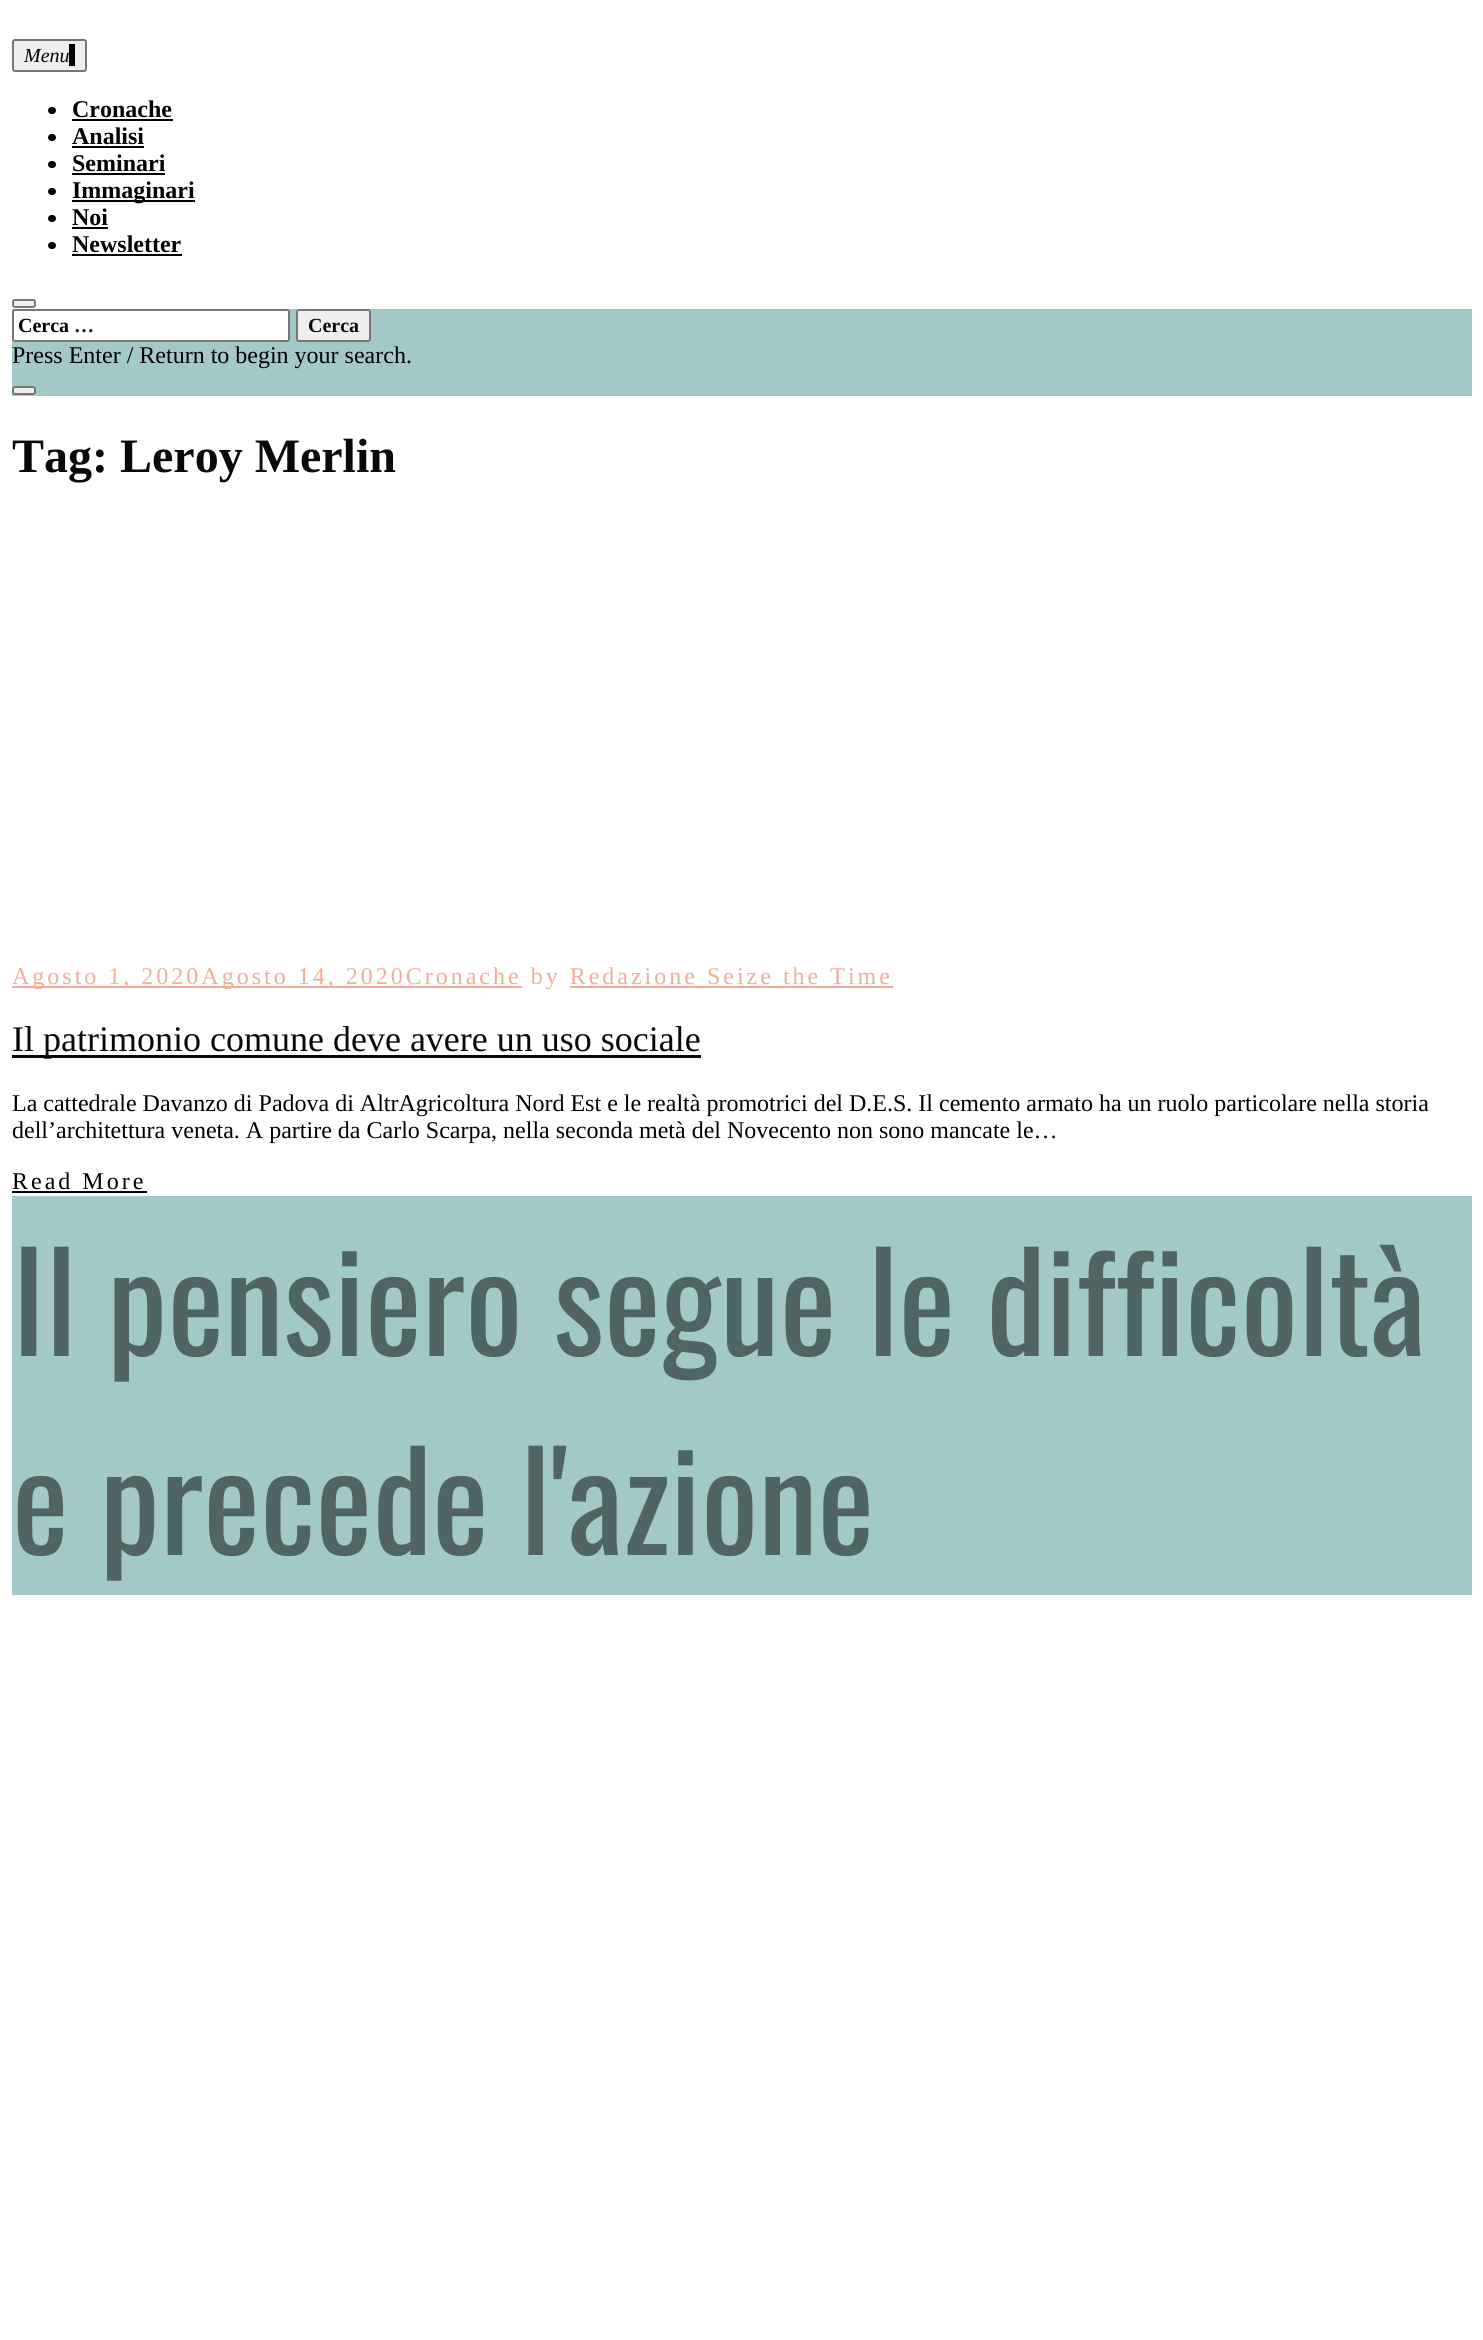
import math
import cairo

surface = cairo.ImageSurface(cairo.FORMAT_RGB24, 1483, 2340)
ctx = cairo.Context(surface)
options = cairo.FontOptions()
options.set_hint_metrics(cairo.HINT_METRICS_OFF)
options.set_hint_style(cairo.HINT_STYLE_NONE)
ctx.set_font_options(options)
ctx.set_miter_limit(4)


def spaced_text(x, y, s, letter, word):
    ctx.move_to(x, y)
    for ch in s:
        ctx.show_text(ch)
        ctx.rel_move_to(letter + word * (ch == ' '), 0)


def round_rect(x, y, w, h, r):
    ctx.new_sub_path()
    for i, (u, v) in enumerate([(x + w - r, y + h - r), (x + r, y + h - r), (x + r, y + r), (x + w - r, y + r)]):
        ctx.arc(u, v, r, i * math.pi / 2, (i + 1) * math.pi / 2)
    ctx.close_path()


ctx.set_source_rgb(1, 1, 1)
ctx.paint()
ctx.set_source_rgb(0.937, 0.937, 0.937)
round_rect(13, 40, 73, 31, 2)
ctx.fill_preserve()
ctx.set_source_rgb(0.463, 0.463, 0.463)
ctx.stroke()
ctx.select_font_face("Liberation Serif", cairo.FONT_SLANT_ITALIC)
ctx.set_font_size(20)
ctx.set_source_rgb(0, 0, 0)
ctx.move_to(24, 62)
ctx.show_text("Menu")
ctx.rectangle(69, 44, 6, 22)
ctx.fill()
round_rect(48, 107, 8, 7, 3.5)
ctx.fill()
ctx.select_font_face("Liberation Serif", cairo.FONT_SLANT_NORMAL, cairo.FONT_WEIGHT_BOLD)
ctx.set_font_size(24)
ctx.move_to(72, 117)
ctx.show_text("Cronache")
ctx.rectangle(72, 119, 101, 2)
ctx.fill()
round_rect(48, 134, 8, 7, 3.5)
ctx.fill()
ctx.move_to(72, 144)
ctx.show_text("Analisi")
ctx.rectangle(72, 146, 72, 2)
ctx.fill()
round_rect(48, 161, 8, 7, 3.5)
ctx.fill()
ctx.move_to(72, 171)
ctx.show_text("Seminari")
ctx.rectangle(72, 173, 93, 2)
ctx.fill()
round_rect(48, 188, 8, 7, 3.5)
ctx.fill()
ctx.rectangle(72, 200, 123, 2)
ctx.fill()
ctx.move_to(72, 198)
ctx.show_text("Immaginari")
round_rect(48, 215, 8, 7, 3.5)
ctx.fill()
ctx.move_to(72, 225)
ctx.show_text("Noi")
ctx.rectangle(72, 227, 36, 2)
ctx.fill()
round_rect(48, 242, 8, 7, 3.5)
ctx.fill()
ctx.move_to(72, 252)
ctx.show_text("Newsletter")
ctx.rectangle(72, 254, 110, 2)
ctx.fill()
ctx.set_source_rgb(0.937, 0.937, 0.937)
round_rect(13, 300, 22, 7, 2)
ctx.fill_preserve()
ctx.set_source_rgb(0.463, 0.463, 0.463)
ctx.stroke()
ctx.set_source_rgb(0.635, 0.784, 0.784)
ctx.rectangle(12, 309, 1460, 87)
ctx.fill()
ctx.set_source_rgb(1, 1, 1)
round_rect(13, 310, 276, 31, 2)
ctx.fill_preserve()
ctx.set_source_rgb(0.463, 0.463, 0.463)
ctx.stroke()
ctx.set_font_size(20)
ctx.set_source_rgb(0, 0, 0)
ctx.move_to(18, 332)
ctx.show_text("Cerca …")
ctx.set_source_rgb(0.937, 0.937, 0.937)
round_rect(297, 310, 73, 31, 2)
ctx.fill_preserve()
ctx.set_source_rgb(0.463, 0.463, 0.463)
ctx.stroke()
ctx.set_source_rgb(0.039, 0.039, 0.039)
ctx.move_to(308, 332)
ctx.show_text("Cerca")
ctx.select_font_face("Liberation Serif")
ctx.set_font_size(24)
ctx.set_source_rgb(0, 0, 0)
ctx.move_to(12, 363)
ctx.show_text("Press Enter / Return to begin your search.")
ctx.set_source_rgb(0.937, 0.937, 0.937)
round_rect(13, 387, 22, 7, 2)
ctx.fill_preserve()
ctx.set_source_rgb(0.463, 0.463, 0.463)
ctx.stroke()
ctx.select_font_face("Liberation Serif", cairo.FONT_SLANT_NORMAL, cairo.FONT_WEIGHT_BOLD)
ctx.set_font_size(48)
ctx.set_source_rgb(0.039, 0.039, 0.039)
ctx.move_to(12, 472)
ctx.show_text("Tag: Leroy Merlin")
ctx.set_source_rgb(0.953, 0.678, 0.592)
ctx.rectangle(12, 986, 510, 2)
ctx.fill()
ctx.select_font_face("Liberation Serif")
ctx.set_font_size(24)
spaced_text(12, 984, "Agosto 1, 2020Agosto 14, 2020Cronache by Redazione Seize the Time", 3, 0)
ctx.rectangle(570, 986, 323, 2)
ctx.fill()
ctx.set_source_rgb(0.039, 0.039, 0.039)
ctx.rectangle(12, 1055, 689, 3)
ctx.fill()
ctx.set_font_size(36)
ctx.move_to(12, 1051)
ctx.show_text("Il patrimonio comune deve avere un uso sociale")
ctx.set_font_size(24)
ctx.set_source_rgb(0, 0, 0)
ctx.move_to(12, 1111)
ctx.show_text("La cattedrale Davanzo di Padova di AltrAgricoltura Nord Est e le realtà promotrici del D.E.S. Il cemento armato ha un ruolo particolare nella storia")
ctx.move_to(12, 1138)
ctx.show_text("dell’architettura veneta. A partire da Carlo Scarpa, nella seconda metà del Novecento non sono mancate le…")
spaced_text(12, 1189, "Read More", 3, 0)
ctx.rectangle(12, 1191, 135, 2)
ctx.fill()
ctx.set_source_rgb(0.635, 0.784, 0.784)
ctx.rectangle(12, 1196, 1460, 399)
ctx.fill()
ctx.select_font_face("Oswald")
ctx.set_font_size(135)
ctx.set_source_rgb(0.318, 0.392, 0.392)
ctx.move_to(12, 1356)
ctx.show_text("Il pensiero segue le difficoltà")
ctx.move_to(12, 1555)
ctx.show_text("e precede l'azione")
surface.write_to_png("page.png")
